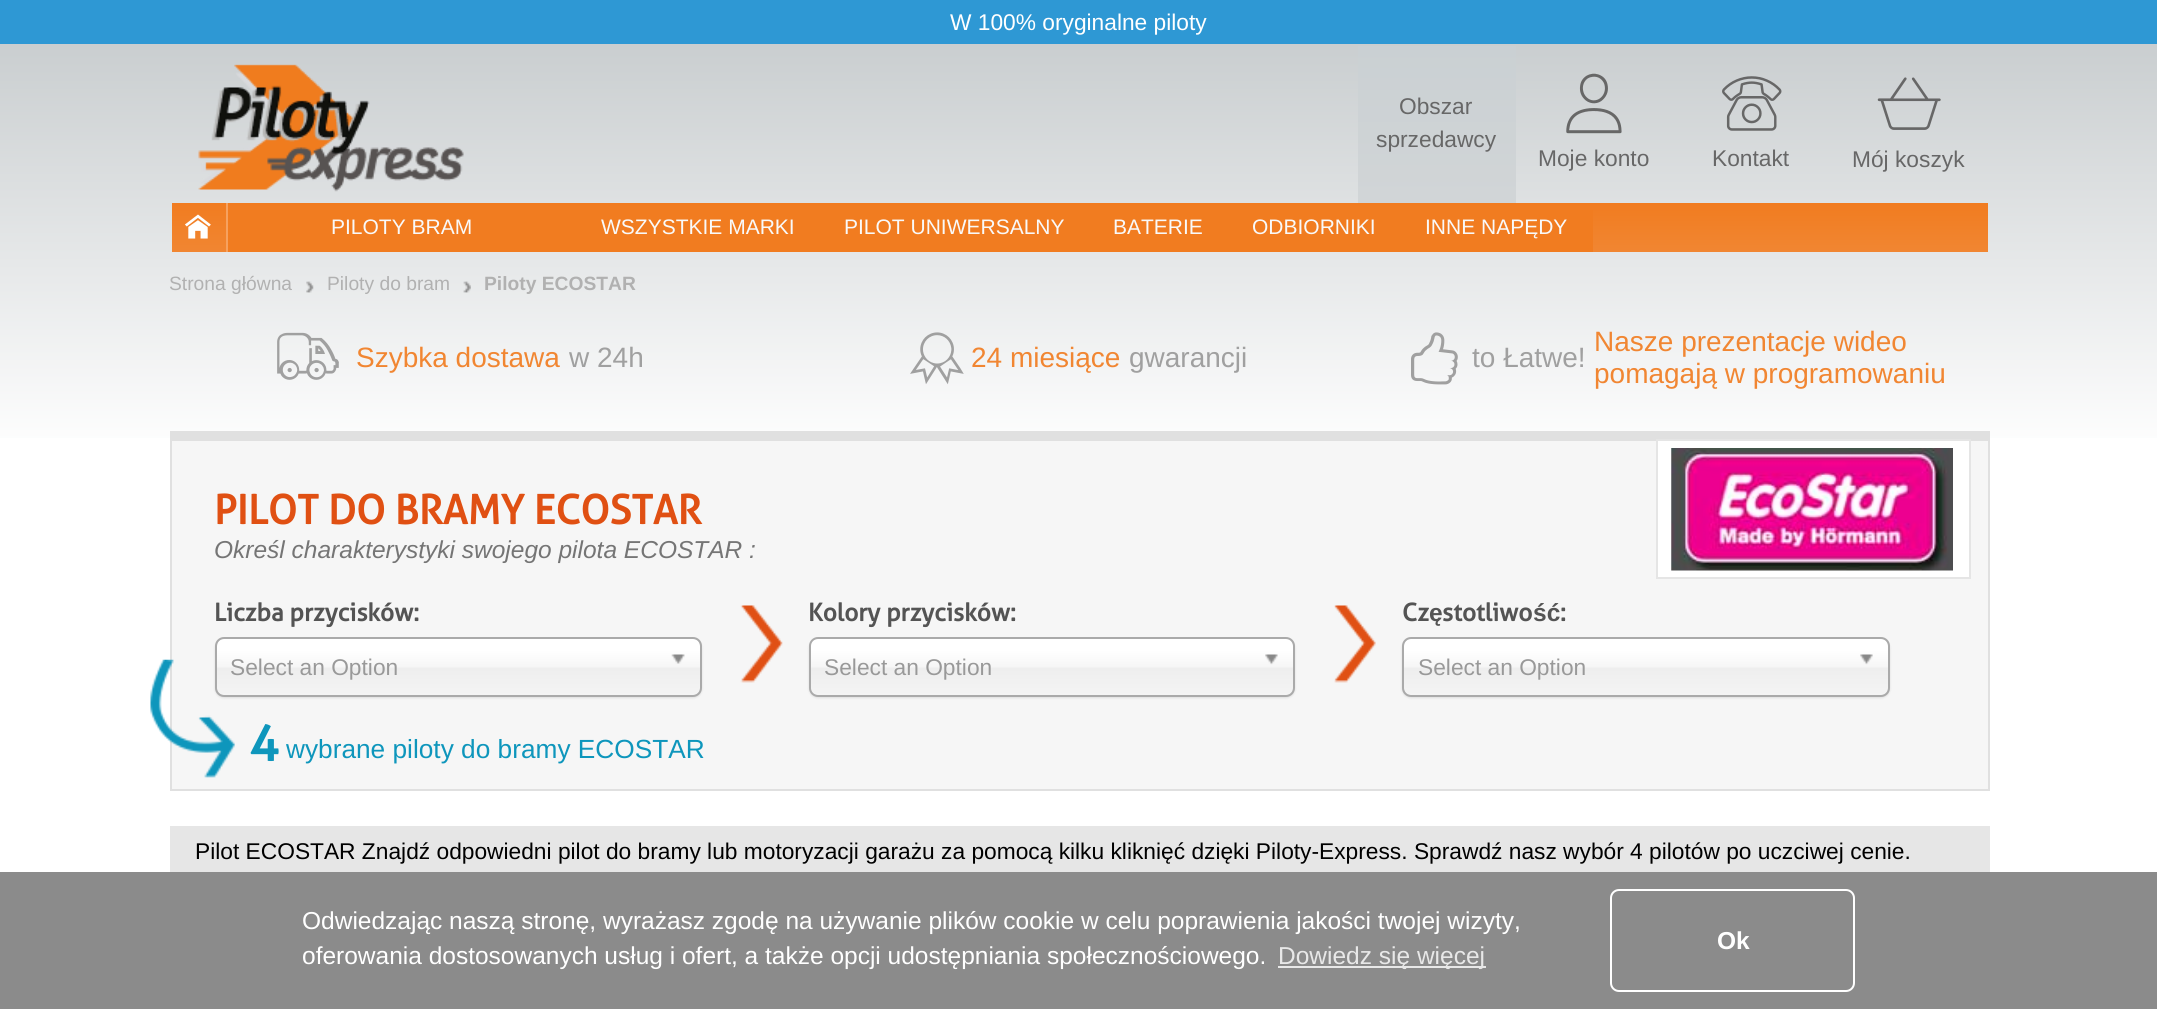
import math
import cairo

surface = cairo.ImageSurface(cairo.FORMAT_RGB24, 2157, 1009)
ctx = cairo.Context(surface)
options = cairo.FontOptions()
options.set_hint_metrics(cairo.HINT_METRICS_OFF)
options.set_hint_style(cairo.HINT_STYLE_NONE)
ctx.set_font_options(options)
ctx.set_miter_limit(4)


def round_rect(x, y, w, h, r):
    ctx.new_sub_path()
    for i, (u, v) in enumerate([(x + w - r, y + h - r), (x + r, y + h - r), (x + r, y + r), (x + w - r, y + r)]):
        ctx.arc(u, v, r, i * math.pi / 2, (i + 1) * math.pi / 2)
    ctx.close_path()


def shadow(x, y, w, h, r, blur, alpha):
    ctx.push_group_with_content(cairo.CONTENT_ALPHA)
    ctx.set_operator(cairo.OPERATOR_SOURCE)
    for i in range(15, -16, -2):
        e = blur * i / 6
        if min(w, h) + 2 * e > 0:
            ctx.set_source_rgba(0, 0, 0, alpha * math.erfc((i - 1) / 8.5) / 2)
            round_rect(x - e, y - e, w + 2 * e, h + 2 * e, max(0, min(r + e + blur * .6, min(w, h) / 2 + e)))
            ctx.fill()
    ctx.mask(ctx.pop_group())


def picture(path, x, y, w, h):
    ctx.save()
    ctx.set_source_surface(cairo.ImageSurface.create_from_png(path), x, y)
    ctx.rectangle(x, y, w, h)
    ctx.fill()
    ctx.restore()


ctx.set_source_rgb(1, 1, 1)
ctx.paint()
gradient = cairo.LinearGradient(1079, 0, 1079, 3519)
gradient.add_color_stop_rgba(0, 0.769, 0.788, 0.796, 1)
gradient.add_color_stop_rgba(0.13, 1, 1, 1, 1)
ctx.set_source(gradient)
ctx.rectangle(0, 44, 2157, 394)
ctx.fill()
ctx.set_source_rgb(0.18, 0.596, 0.831)
ctx.rectangle(0, 0, 2157, 44)
ctx.fill()
ctx.select_font_face("Liberation Sans")
ctx.set_font_size(22.75)
ctx.set_source_rgb(1, 1, 1)
ctx.move_to(950, 30)
ctx.show_text("W 100% oryginalne piloty")
picture("img1.png", 198, 64, 266, 128)
gradient = cairo.LinearGradient(1437, 45, 1437, 203)
gradient.add_color_stop_rgba(0, 0.792, 0.816, 0.827, 1)
gradient.add_color_stop_rgba(0.98, 0.82, 0.835, 0.843, 1)
ctx.set_source(gradient)
ctx.rectangle(1358, 46, 158, 157)
ctx.fill()
ctx.set_source_rgb(0.404, 0.404, 0.404)
ctx.move_to(1399, 114)
ctx.show_text("Obszar")
ctx.move_to(1376, 147)
ctx.show_text("sprzedawcy")
picture("img2.png", 1566, 73, 56, 61)
ctx.move_to(1538, 166)
ctx.show_text("Moje konto")
picture("img3.png", 1722, 76, 60, 55)
ctx.move_to(1712, 166)
ctx.show_text("Kontakt")
picture("img4.png", 1877, 77, 64, 53)
ctx.move_to(1852, 167)
ctx.show_text("Mój koszyk")
gradient = cairo.LinearGradient(1080, 203, 1080, 252)
gradient.add_color_stop_rgba(0, 0.945, 0.486, 0.125, 1)
gradient.add_color_stop_rgba(1, 0.945, 0.525, 0.196, 1)
ctx.set_source(gradient)
ctx.rectangle(172, 203, 1816, 49)
ctx.fill()
ctx.set_source_rgb(0.961, 0.631, 0.373)
ctx.rectangle(226, 203, 2, 49)
ctx.fill()
picture("img5.png", 185, 214, 26, 25)
ctx.set_source_rgb(0.945, 0.486, 0.125)
ctx.rectangle(228, 210, 1365, 42)
ctx.fill()
ctx.set_font_size(21)
ctx.set_source_rgb(0.976, 0.976, 0.976)
ctx.move_to(331, 234)
ctx.show_text("PILOTY BRAM")
ctx.move_to(601, 234)
ctx.show_text("WSZYSTKIE MARKI")
ctx.move_to(844, 234)
ctx.show_text("PILOT UNIWERSALNY")
ctx.move_to(1113, 234)
ctx.show_text("BATERIE")
ctx.move_to(1252, 234)
ctx.show_text("ODBIORNIKI")
ctx.move_to(1425, 234)
ctx.show_text("INNE NAPĘDY")
ctx.set_font_size(19.25)
ctx.set_source_rgb(0.694, 0.694, 0.694)
ctx.move_to(169, 290)
ctx.show_text("Strona główna")
picture("img6.png", 306, 281, 8, 12)
ctx.move_to(327, 290)
ctx.show_text("Piloty do bram")
picture("img7.png", 463, 281, 8, 12)
ctx.select_font_face("Liberation Sans", cairo.FONT_SLANT_NORMAL, cairo.FONT_WEIGHT_BOLD)
ctx.move_to(484, 290)
ctx.show_text("Piloty ECOSTAR")
ctx.select_font_face("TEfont")
ctx.set_font_size(52)
ctx.set_source_rgb(0.627, 0.627, 0.627)
ctx.move_to(277, 374)
ctx.show_text("9")
ctx.select_font_face("Liberation Sans")
ctx.set_font_size(28)
ctx.set_source_rgb(0.945, 0.525, 0.196)
ctx.move_to(356, 367)
ctx.show_text("Szybka dostawa")
ctx.set_source_rgb(0.627, 0.627, 0.627)
ctx.move_to(569, 367)
ctx.show_text("w 24h")
ctx.select_font_face("TEfont")
ctx.set_font_size(52)
ctx.move_to(910, 374)
ctx.show_text("8")
ctx.select_font_face("Liberation Sans")
ctx.set_font_size(28)
ctx.set_source_rgb(0.945, 0.525, 0.196)
ctx.move_to(971, 367)
ctx.show_text("24 miesiące")
ctx.set_source_rgb(0.627, 0.627, 0.627)
ctx.move_to(1129, 367)
ctx.show_text("gwarancji")
ctx.select_font_face("TEfont")
ctx.set_font_size(52)
ctx.move_to(1411, 374)
ctx.show_text("7")
ctx.select_font_face("Liberation Sans")
ctx.set_font_size(28)
ctx.move_to(1472, 367)
ctx.show_text("to Łatwe!")
ctx.set_source_rgb(0.945, 0.525, 0.196)
ctx.move_to(1594, 351)
ctx.show_text("Nasze prezentacje wideo")
ctx.move_to(1594, 383)
ctx.show_text("pomagają w programowaniu")
ctx.set_source_rgb(0.961, 0.961, 0.961)
ctx.rectangle(172, 441, 1816, 348)
ctx.fill()
ctx.set_source_rgb(0.878, 0.878, 0.878)
ctx.rectangle(172, 431, 1816, 10)
ctx.fill()
ctx.rectangle(1988, 431, 2, 360)
ctx.fill()
ctx.rectangle(170, 789, 1820, 2)
ctx.fill()
ctx.rectangle(170, 431, 2, 360)
ctx.fill()
ctx.select_font_face("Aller", cairo.FONT_SLANT_NORMAL, cairo.FONT_WEIGHT_BOLD)
ctx.set_font_size(40.25)
ctx.set_source_rgb(0.878, 0.314, 0.078)
ctx.move_to(214, 524)
ctx.show_text("PILOT DO BRAMY ECOSTAR")
ctx.select_font_face("Liberation Sans", cairo.FONT_SLANT_ITALIC)
ctx.set_font_size(24.5)
ctx.set_source_rgb(0.459, 0.459, 0.459)
ctx.move_to(214, 558)
ctx.show_text("Określ charakterystyki swojego pilota ECOSTAR :")
ctx.set_source_rgb(1, 1, 1)
ctx.rectangle(1657, 440, 313, 138)
ctx.fill_preserve()
ctx.set_source_rgb(0.898, 0.898, 0.898)
ctx.stroke()
picture("img8.png", 1671, 448, 282, 123)
picture("img9.png", 740, 605, 43, 78)
ctx.select_font_face("Aller", cairo.FONT_SLANT_NORMAL, cairo.FONT_WEIGHT_BOLD)
ctx.set_source_rgb(0.329, 0.329, 0.329)
ctx.move_to(214, 621)
ctx.show_text("Liczba przycisków:")
ctx.set_source_rgb(0, 0, 0)
shadow(215, 639, 487, 59, 9, 1, 0.1)
gradient = cairo.LinearGradient(217, 639, 217, 695)
gradient.add_color_stop_rgba(0.2, 1, 1, 1, 1)
gradient.add_color_stop_rgba(0.5, 0.965, 0.965, 0.965, 1)
gradient.add_color_stop_rgba(0.52, 0.933, 0.933, 0.933, 1)
gradient.add_color_stop_rgba(1, 0.957, 0.957, 0.957, 1)
ctx.set_source(gradient)
round_rect(217, 639, 483, 56, 7)
ctx.fill()
round_rect(216, 638, 485, 58, 8)
ctx.set_source_rgb(0.667, 0.667, 0.667)
ctx.stroke()
ctx.select_font_face("Liberation Sans")
ctx.set_font_size(22.75)
ctx.set_source_rgb(0.6, 0.6, 0.6)
ctx.move_to(230, 675)
ctx.show_text("Select an Option")
picture("img10.png", 671, 654, 14, 10)
picture("img11.png", 1334, 605, 42, 78)
ctx.select_font_face("Aller", cairo.FONT_SLANT_NORMAL, cairo.FONT_WEIGHT_BOLD)
ctx.set_font_size(24.5)
ctx.set_source_rgb(0.329, 0.329, 0.329)
ctx.move_to(808, 621)
ctx.show_text("Kolory przycisków:")
ctx.set_source_rgb(0, 0, 0)
shadow(809, 639, 486, 59, 9, 1, 0.1)
gradient = cairo.LinearGradient(810, 639, 810, 695)
gradient.add_color_stop_rgba(0.2, 1, 1, 1, 1)
gradient.add_color_stop_rgba(0.5, 0.965, 0.965, 0.965, 1)
gradient.add_color_stop_rgba(0.52, 0.933, 0.933, 0.933, 1)
gradient.add_color_stop_rgba(1, 0.957, 0.957, 0.957, 1)
ctx.set_source(gradient)
round_rect(810, 639, 483, 56, 7)
ctx.fill()
round_rect(810, 638, 484, 58, 8)
ctx.set_source_rgb(0.667, 0.667, 0.667)
ctx.stroke()
ctx.select_font_face("Liberation Sans")
ctx.set_font_size(22.75)
ctx.set_source_rgb(0.6, 0.6, 0.6)
ctx.move_to(824, 675)
ctx.show_text("Select an Option")
picture("img12.png", 1265, 654, 13, 11)
ctx.select_font_face("Aller", cairo.FONT_SLANT_NORMAL, cairo.FONT_WEIGHT_BOLD)
ctx.set_font_size(24.5)
ctx.set_source_rgb(0.329, 0.329, 0.329)
ctx.move_to(1402, 621)
ctx.show_text("Cz")
ctx.select_font_face("Liberation Sans", cairo.FONT_SLANT_NORMAL, cairo.FONT_WEIGHT_BOLD)
ctx.move_to(1429, 621)
ctx.show_text("ę")
ctx.select_font_face("Aller", cairo.FONT_SLANT_NORMAL, cairo.FONT_WEIGHT_BOLD)
ctx.move_to(1442, 621)
ctx.show_text("stotliwo")
ctx.select_font_face("Liberation Sans", cairo.FONT_SLANT_NORMAL, cairo.FONT_WEIGHT_BOLD)
ctx.move_to(1533, 621)
ctx.show_text("ść")
ctx.select_font_face("Aller", cairo.FONT_SLANT_NORMAL, cairo.FONT_WEIGHT_BOLD)
ctx.move_to(1560, 621)
ctx.show_text(":")
ctx.set_source_rgb(0, 0, 0)
shadow(1402, 639, 488, 59, 9, 1, 0.1)
gradient = cairo.LinearGradient(1404, 639, 1404, 695)
gradient.add_color_stop_rgba(0.2, 1, 1, 1, 1)
gradient.add_color_stop_rgba(0.5, 0.965, 0.965, 0.965, 1)
gradient.add_color_stop_rgba(0.52, 0.933, 0.933, 0.933, 1)
gradient.add_color_stop_rgba(1, 0.957, 0.957, 0.957, 1)
ctx.set_source(gradient)
round_rect(1404, 639, 484, 56, 7)
ctx.fill()
round_rect(1403, 638, 486, 58, 8)
ctx.set_source_rgb(0.667, 0.667, 0.667)
ctx.stroke()
ctx.select_font_face("Liberation Sans")
ctx.set_font_size(22.75)
ctx.set_source_rgb(0.6, 0.6, 0.6)
ctx.move_to(1418, 675)
ctx.show_text("Select an Option")
picture("img13.png", 1860, 654, 13, 11)
picture("img14.png", 150, 659, 85, 119)
ctx.select_font_face("Aller", cairo.FONT_SLANT_NORMAL, cairo.FONT_WEIGHT_BOLD)
ctx.set_font_size(49)
ctx.set_source_rgb(0.055, 0.588, 0.737)
ctx.move_to(249, 758)
ctx.show_text("4")
ctx.select_font_face("Liberation Sans")
ctx.set_font_size(26.25)
ctx.move_to(286, 758)
ctx.show_text("wybrane piloty do bramy ECOSTAR")
ctx.set_source_rgb(0.902, 0.902, 0.902)
ctx.rectangle(170, 826, 1820, 46)
ctx.fill()
ctx.set_font_size(22.75)
ctx.set_source_rgb(0, 0, 0)
ctx.move_to(195, 859)
ctx.show_text("Pilot ECOSTAR Znajdź odpowiedni pilot do bramy lub motoryzacji garażu za pomocą kilku kliknięć dzięki Piloty-Express. Sprawdź nasz wybór 4 pilotów po uczciwej cenie.")
ctx.set_source_rgb(0.545, 0.545, 0.545)
ctx.rectangle(0, 872, 2157, 137)
ctx.fill()
ctx.set_font_size(24.5)
ctx.set_source_rgb(1, 1, 1)
ctx.move_to(302, 929)
ctx.show_text("Odwiedzając naszą stronę, wyrażasz zgodę na używanie plików cookie w celu poprawienia jakości twojej wizyty,")
ctx.move_to(302, 964)
ctx.show_text("oferowania dostosowanych usług i ofert, a także opcji udostępniania społecznościowego.")
ctx.set_source_rgb(0.91, 0.91, 0.91)
ctx.rectangle(1278, 966, 208, 2)
ctx.fill()
ctx.move_to(1278, 964)
ctx.show_text("Dowiedz się więcej")
round_rect(1611, 890, 243, 101, 8)
ctx.set_source_rgb(1, 1, 1)
ctx.stroke()
ctx.select_font_face("Liberation Sans", cairo.FONT_SLANT_NORMAL, cairo.FONT_WEIGHT_BOLD)
ctx.move_to(1717, 949)
ctx.show_text("Ok")
surface.write_to_png("page.png")
